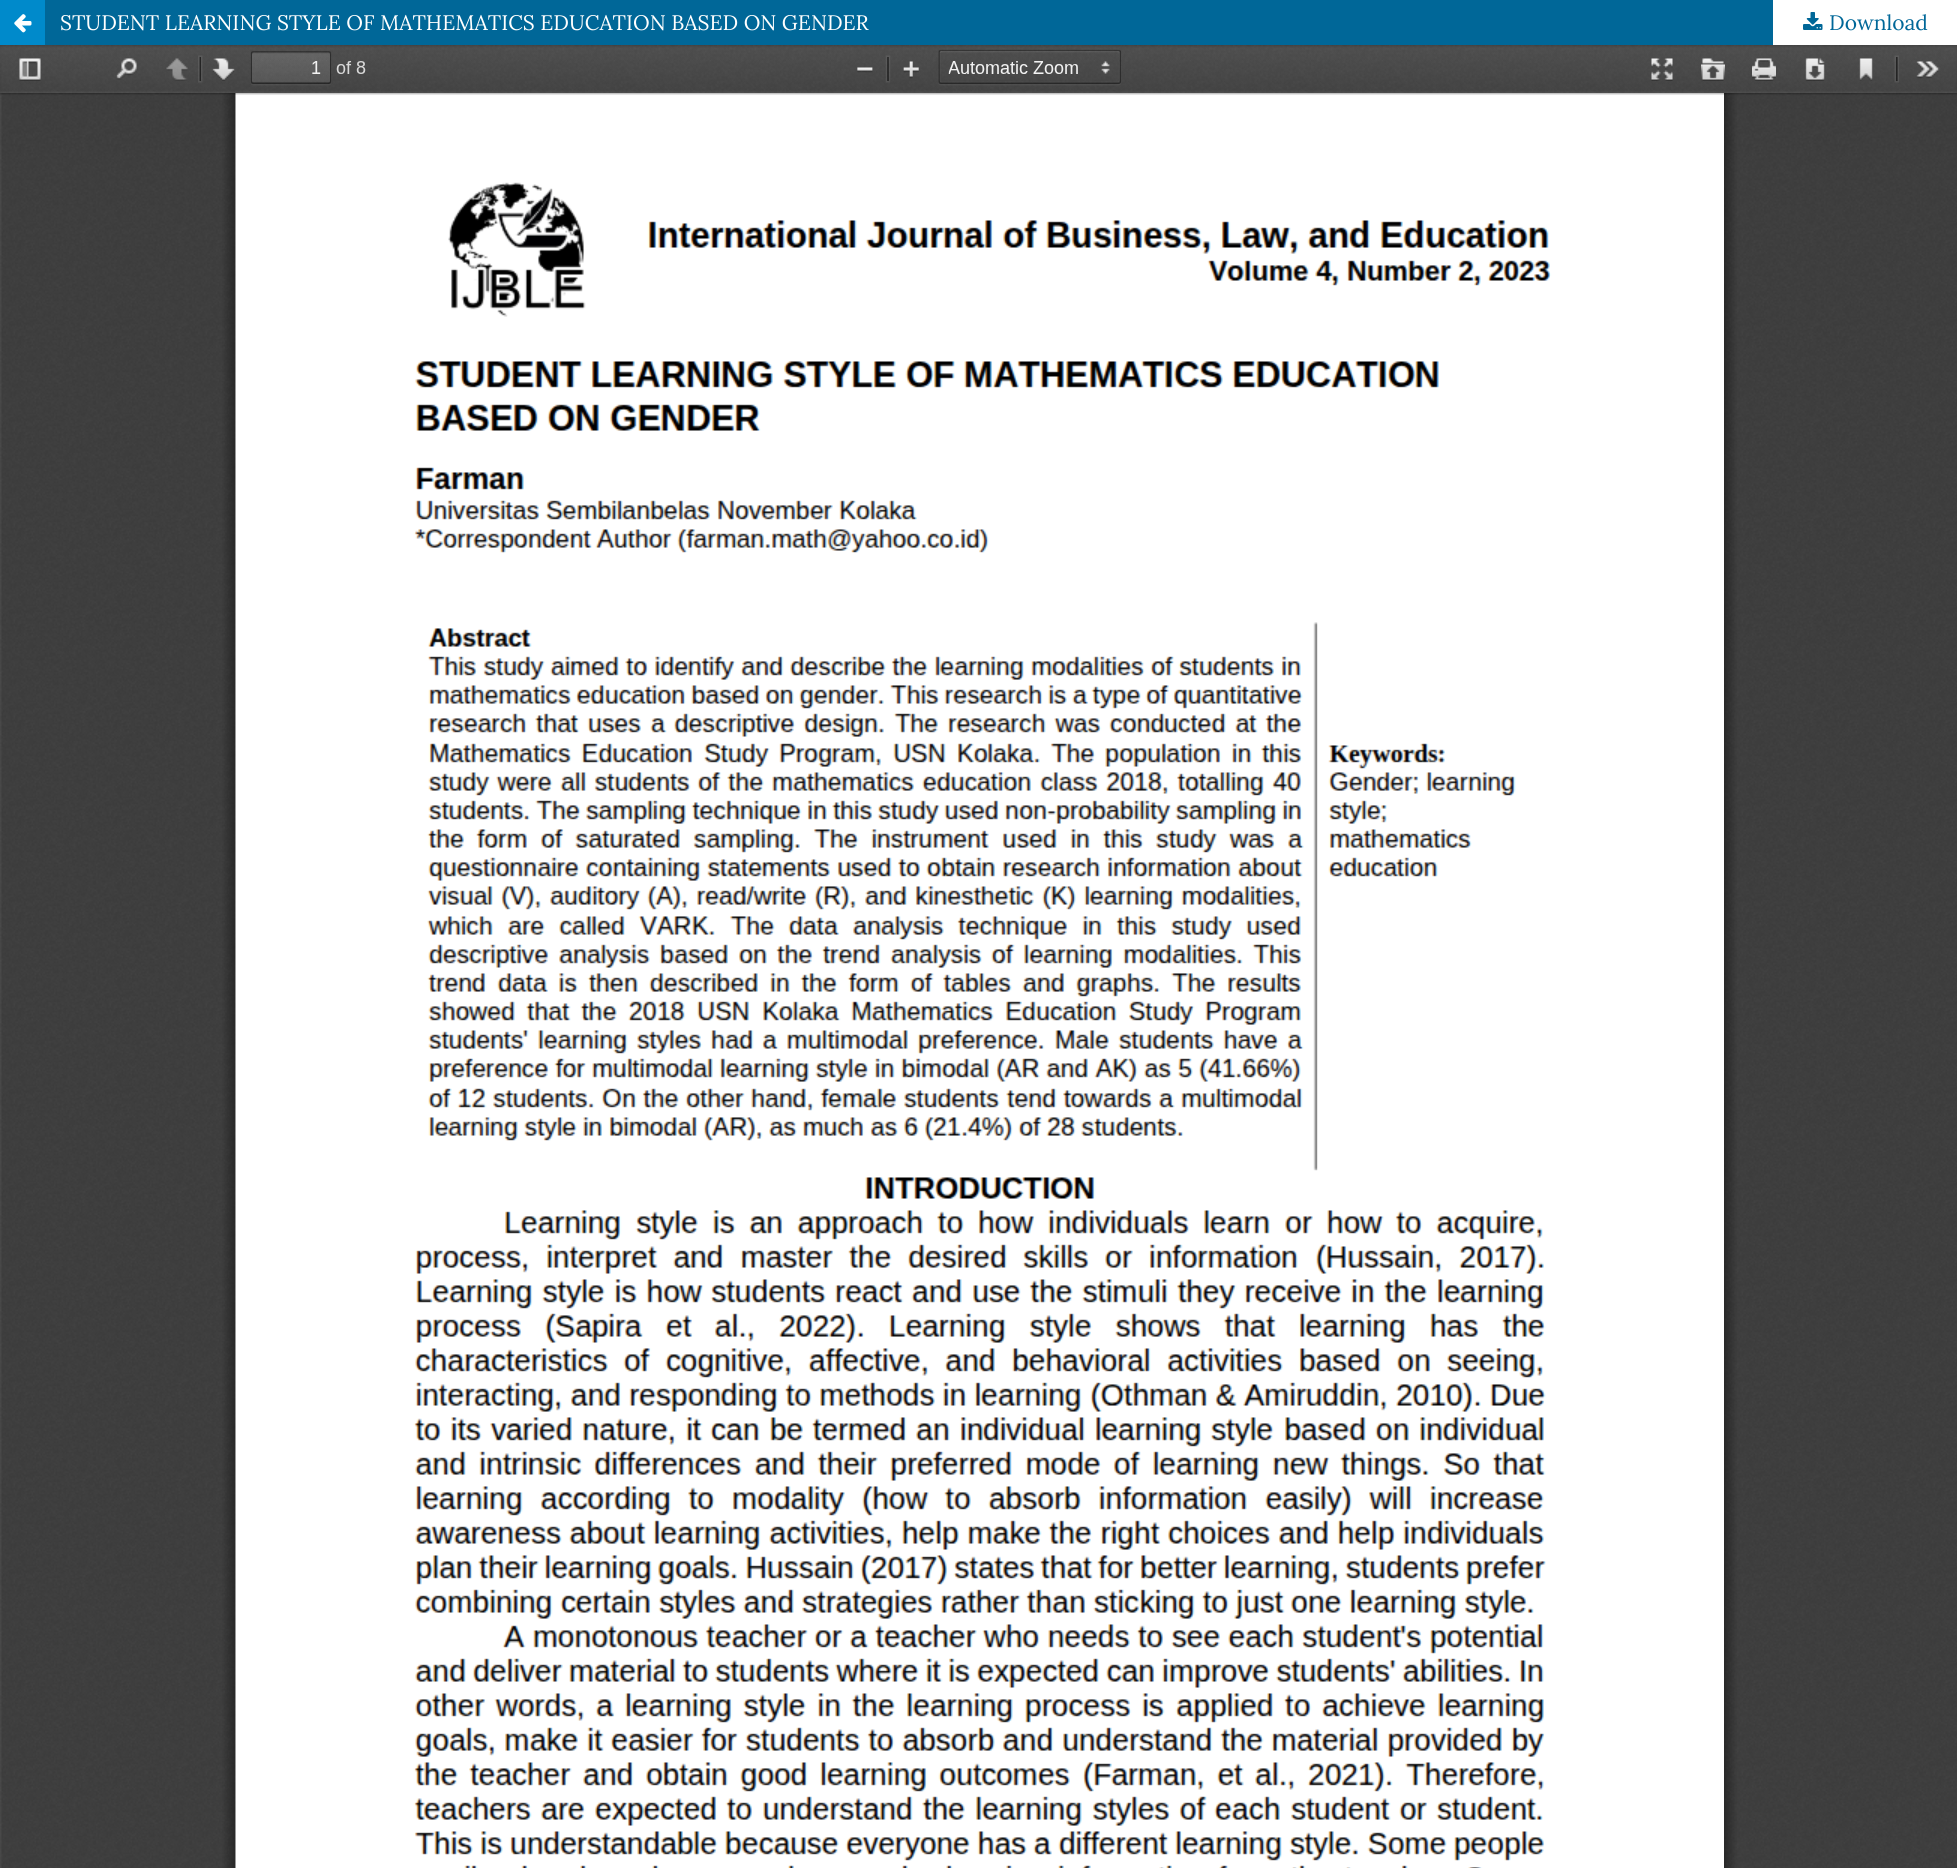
import math
import cairo

surface = cairo.ImageSurface(cairo.FORMAT_RGB24, 1957, 1868)
ctx = cairo.Context(surface)
options = cairo.FontOptions()
options.set_hint_metrics(cairo.HINT_METRICS_OFF)
options.set_hint_style(cairo.HINT_STYLE_NONE)
ctx.set_font_options(options)
ctx.set_miter_limit(4)


def picture(path, x, y, w, h):
    ctx.save()
    ctx.set_source_surface(cairo.ImageSurface.create_from_png(path), x, y)
    ctx.rectangle(x, y, w, h)
    ctx.fill()
    ctx.restore()


ctx.set_source_rgb(1, 1, 1)
ctx.paint()
ctx.set_source_rgb(0, 0.404, 0.596)
ctx.rectangle(45, 0, 1728, 45)
ctx.fill()
ctx.set_source_rgb(0, 0.541, 0.796)
ctx.rectangle(0, 0, 45, 45)
ctx.fill()
picture("img1.png", 14, 14, 18, 19)
ctx.select_font_face("Lora")
ctx.set_font_size(21)
ctx.set_source_rgb(1, 1, 1)
ctx.move_to(60, 30)
ctx.show_text("STUDENT LEARNING STYLE OF MATHEMATICS EDUCATION BASED ON GENDER")
picture("img2.png", 1803, 12, 20, 18)
ctx.set_source_rgb(0, 0.404, 0.596)
ctx.move_to(1829, 30)
ctx.show_text("Download")
picture("img3.png", 0, 45, 1957, 1823)
surface.write_to_png("page.png")
